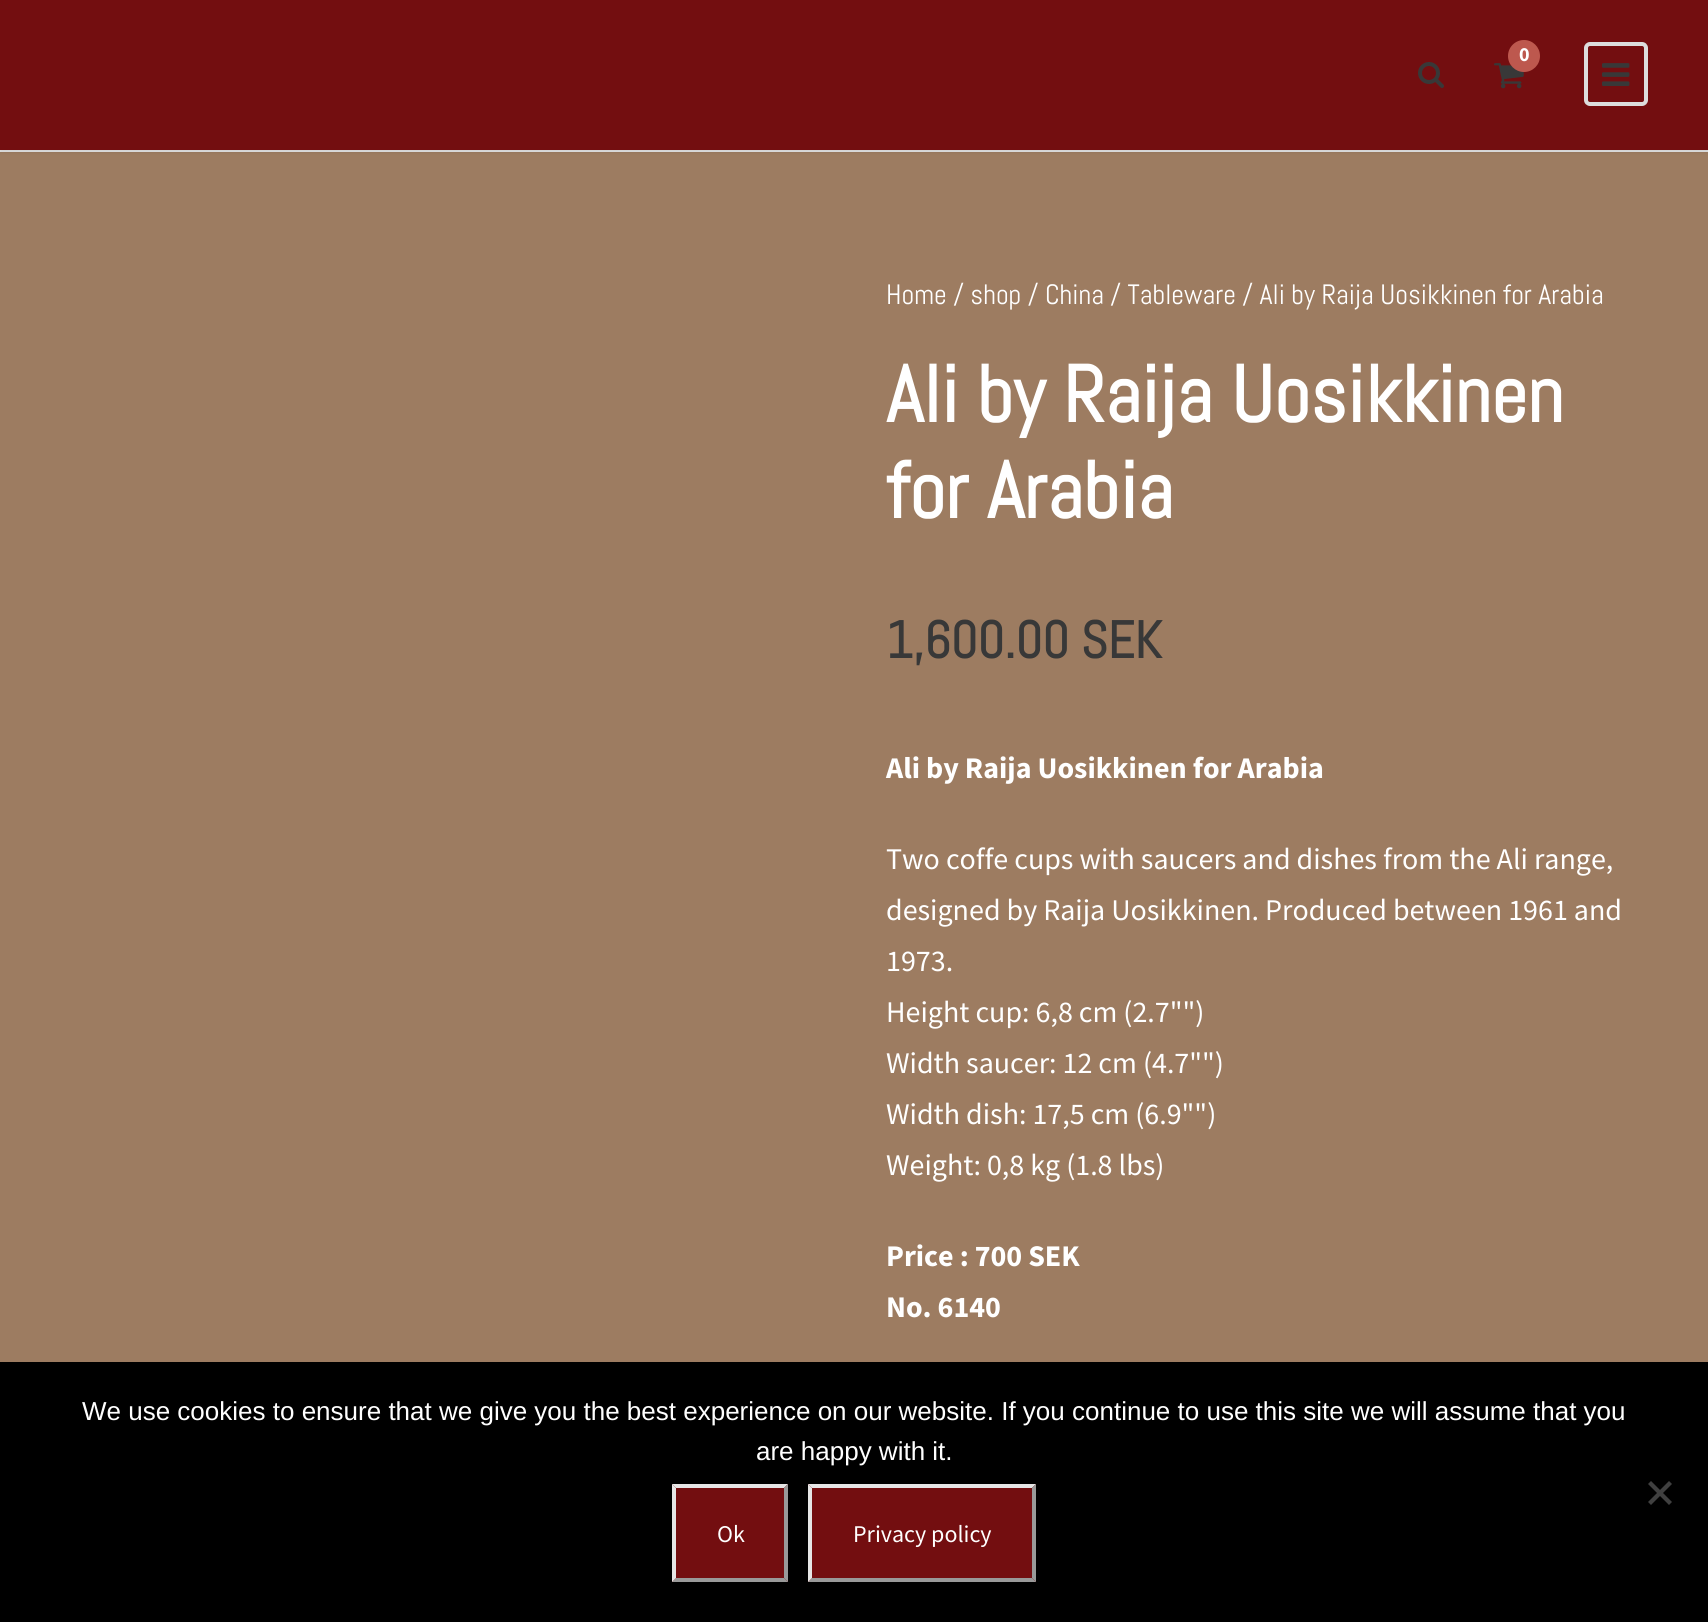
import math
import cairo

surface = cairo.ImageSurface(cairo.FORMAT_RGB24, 1708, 1622)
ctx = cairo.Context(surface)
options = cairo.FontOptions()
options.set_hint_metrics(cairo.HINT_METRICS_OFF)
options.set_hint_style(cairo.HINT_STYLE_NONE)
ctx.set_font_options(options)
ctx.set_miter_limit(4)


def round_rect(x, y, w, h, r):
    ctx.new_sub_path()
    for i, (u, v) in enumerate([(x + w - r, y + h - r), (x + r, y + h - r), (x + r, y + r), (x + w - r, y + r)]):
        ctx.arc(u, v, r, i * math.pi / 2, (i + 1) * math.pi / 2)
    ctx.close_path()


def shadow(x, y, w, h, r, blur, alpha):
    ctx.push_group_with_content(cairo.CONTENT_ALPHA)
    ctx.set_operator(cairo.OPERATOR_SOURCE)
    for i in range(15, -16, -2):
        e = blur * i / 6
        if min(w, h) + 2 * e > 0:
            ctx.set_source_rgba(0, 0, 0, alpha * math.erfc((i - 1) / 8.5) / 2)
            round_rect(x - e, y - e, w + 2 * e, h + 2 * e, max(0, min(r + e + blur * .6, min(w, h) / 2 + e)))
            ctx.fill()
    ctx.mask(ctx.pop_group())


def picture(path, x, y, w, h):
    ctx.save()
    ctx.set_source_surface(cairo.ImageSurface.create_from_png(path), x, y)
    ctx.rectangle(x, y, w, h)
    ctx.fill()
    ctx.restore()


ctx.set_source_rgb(0.616, 0.486, 0.38)
ctx.paint()
ctx.set_source_rgb(0.902, 0.902, 0.902)
ctx.rectangle(0, 150, 1708, 2)
ctx.fill()
ctx.set_source_rgb(0, 0, 0)
shadow(0, 2, 1708, 150, 0, 2, 0.1)
ctx.set_source_rgb(0.451, 0.055, 0.063)
ctx.rectangle(0, 0, 1708, 150)
ctx.fill()
picture("img1.png", 1494, 63, 30, 26)
ctx.set_source_rgb(0.741, 0.345, 0.306)
ctx.arc(1524, 56, 16, 0, 2 * math.pi)
ctx.fill()
ctx.select_font_face("Source Sans Pro", cairo.FONT_SLANT_NORMAL, cairo.FONT_WEIGHT_BOLD)
ctx.set_font_size(20)
ctx.set_source_rgb(1, 1, 1)
ctx.move_to(1519, 61)
ctx.show_text("0")
round_rect(1586, 44, 60, 60, 4)
ctx.set_source_rgb(0.867, 0.867, 0.867)
ctx.set_line_width(4)
ctx.stroke()
picture("img2.png", 1602, 63, 28, 23)
picture("img3.png", 1418, 62, 26, 26)
ctx.select_font_face("Abel")
ctx.set_font_size(28)
ctx.set_source_rgb(1, 1, 1)
ctx.move_to(886, 304)
ctx.show_text("Home / shop / China / Tableware / Ali by Raija Uosikkinen for Arabia")
ctx.select_font_face("Abel", cairo.FONT_SLANT_NORMAL, cairo.FONT_WEIGHT_BOLD)
ctx.set_font_size(80)
ctx.move_to(886, 422)
ctx.show_text("Ali by Raija Uosikkinen")
ctx.move_to(886, 518)
ctx.show_text("for Arabia")
ctx.set_font_size(52)
ctx.set_source_rgb(0.22, 0.22, 0.22)
ctx.move_to(886, 658)
ctx.show_text("1,600.00 SEK")
ctx.select_font_face("Source Sans Pro", cairo.FONT_SLANT_NORMAL, cairo.FONT_WEIGHT_BOLD)
ctx.set_font_size(30)
ctx.set_source_rgb(1, 1, 1)
ctx.move_to(886, 778)
ctx.show_text("Ali by Raija Uosikkinen for Arabia")
ctx.select_font_face("Source Sans Pro")
ctx.move_to(886, 869)
ctx.show_text("Two coffe cups with saucers and dishes from the Ali range,")
ctx.move_to(886, 920)
ctx.show_text("designed by Raija Uosikkinen. Produced between 1961 and")
ctx.move_to(886, 971)
ctx.show_text("1973.")
ctx.move_to(886, 1022)
ctx.show_text("Height cup: 6,8 cm (2.7\"\")")
ctx.move_to(886, 1073)
ctx.show_text("Width saucer: 12 cm (4.7\"\")")
ctx.move_to(886, 1124)
ctx.show_text("Width dish: 17,5 cm (6.9\"\")")
ctx.move_to(886, 1175)
ctx.show_text("Weight: 0,8 kg (1.8 lbs)")
ctx.select_font_face("Source Sans Pro", cairo.FONT_SLANT_NORMAL, cairo.FONT_WEIGHT_BOLD)
ctx.move_to(886, 1266)
ctx.show_text("Price : 700 SEK")
ctx.move_to(886, 1317)
ctx.show_text("No. 6140")
ctx.set_source_rgb(0, 0, 0)
ctx.rectangle(0, 1362, 1708, 260)
ctx.fill()
ctx.select_font_face("Liberation Sans")
ctx.set_font_size(26)
ctx.set_source_rgb(1, 1, 1)
ctx.move_to(82, 1420)
ctx.show_text("We use cookies to ensure that we give you the best experience on our website. If you continue to use this site we will assume that you")
ctx.move_to(756, 1460)
ctx.show_text("are happy with it.")
ctx.set_source_rgb(0.251, 0.251, 0.251)
ctx.new_path()
ctx.move_to(1669, 1481)
ctx.line_to(1672, 1484)
ctx.line_to(1651, 1505)
ctx.line_to(1648, 1502)
ctx.close_path()
ctx.fill()
ctx.new_path()
ctx.move_to(1648, 1484)
ctx.line_to(1651, 1481)
ctx.line_to(1672, 1502)
ctx.line_to(1669, 1505)
ctx.close_path()
ctx.fill()
ctx.set_source_rgb(0.451, 0.055, 0.063)
ctx.rectangle(672, 1484, 116, 98)
ctx.fill()
ctx.set_source_rgb(0.902, 0.902, 0.902)
ctx.new_path()
ctx.move_to(672, 1484)
ctx.line_to(788, 1484)
ctx.line_to(784, 1488)
ctx.line_to(676, 1488)
ctx.close_path()
ctx.fill()
ctx.set_source_rgb(0.6, 0.6, 0.6)
ctx.new_path()
ctx.move_to(788, 1484)
ctx.line_to(788, 1582)
ctx.line_to(784, 1578)
ctx.line_to(784, 1488)
ctx.close_path()
ctx.fill()
ctx.new_path()
ctx.move_to(788, 1582)
ctx.line_to(672, 1582)
ctx.line_to(676, 1578)
ctx.line_to(784, 1578)
ctx.close_path()
ctx.fill()
ctx.set_source_rgb(0.902, 0.902, 0.902)
ctx.new_path()
ctx.move_to(672, 1582)
ctx.line_to(672, 1484)
ctx.line_to(676, 1488)
ctx.line_to(676, 1578)
ctx.close_path()
ctx.fill()
ctx.select_font_face("Source Sans Pro")
ctx.set_font_size(24)
ctx.set_source_rgb(1, 1, 1)
ctx.move_to(717, 1542)
ctx.show_text("Ok")
ctx.set_source_rgb(0.451, 0.055, 0.063)
ctx.rectangle(808, 1484, 228, 98)
ctx.fill()
ctx.set_source_rgb(0.902, 0.902, 0.902)
ctx.new_path()
ctx.move_to(808, 1484)
ctx.line_to(1036, 1484)
ctx.line_to(1032, 1488)
ctx.line_to(812, 1488)
ctx.close_path()
ctx.fill()
ctx.set_source_rgb(0.6, 0.6, 0.6)
ctx.new_path()
ctx.move_to(1036, 1484)
ctx.line_to(1036, 1582)
ctx.line_to(1032, 1578)
ctx.line_to(1032, 1488)
ctx.close_path()
ctx.fill()
ctx.new_path()
ctx.move_to(1036, 1582)
ctx.line_to(808, 1582)
ctx.line_to(812, 1578)
ctx.line_to(1032, 1578)
ctx.close_path()
ctx.fill()
ctx.set_source_rgb(0.902, 0.902, 0.902)
ctx.new_path()
ctx.move_to(808, 1582)
ctx.line_to(808, 1484)
ctx.line_to(812, 1488)
ctx.line_to(812, 1578)
ctx.close_path()
ctx.fill()
ctx.set_source_rgb(1, 1, 1)
ctx.move_to(853, 1542)
ctx.show_text("Privacy policy")
surface.write_to_png("page.png")
